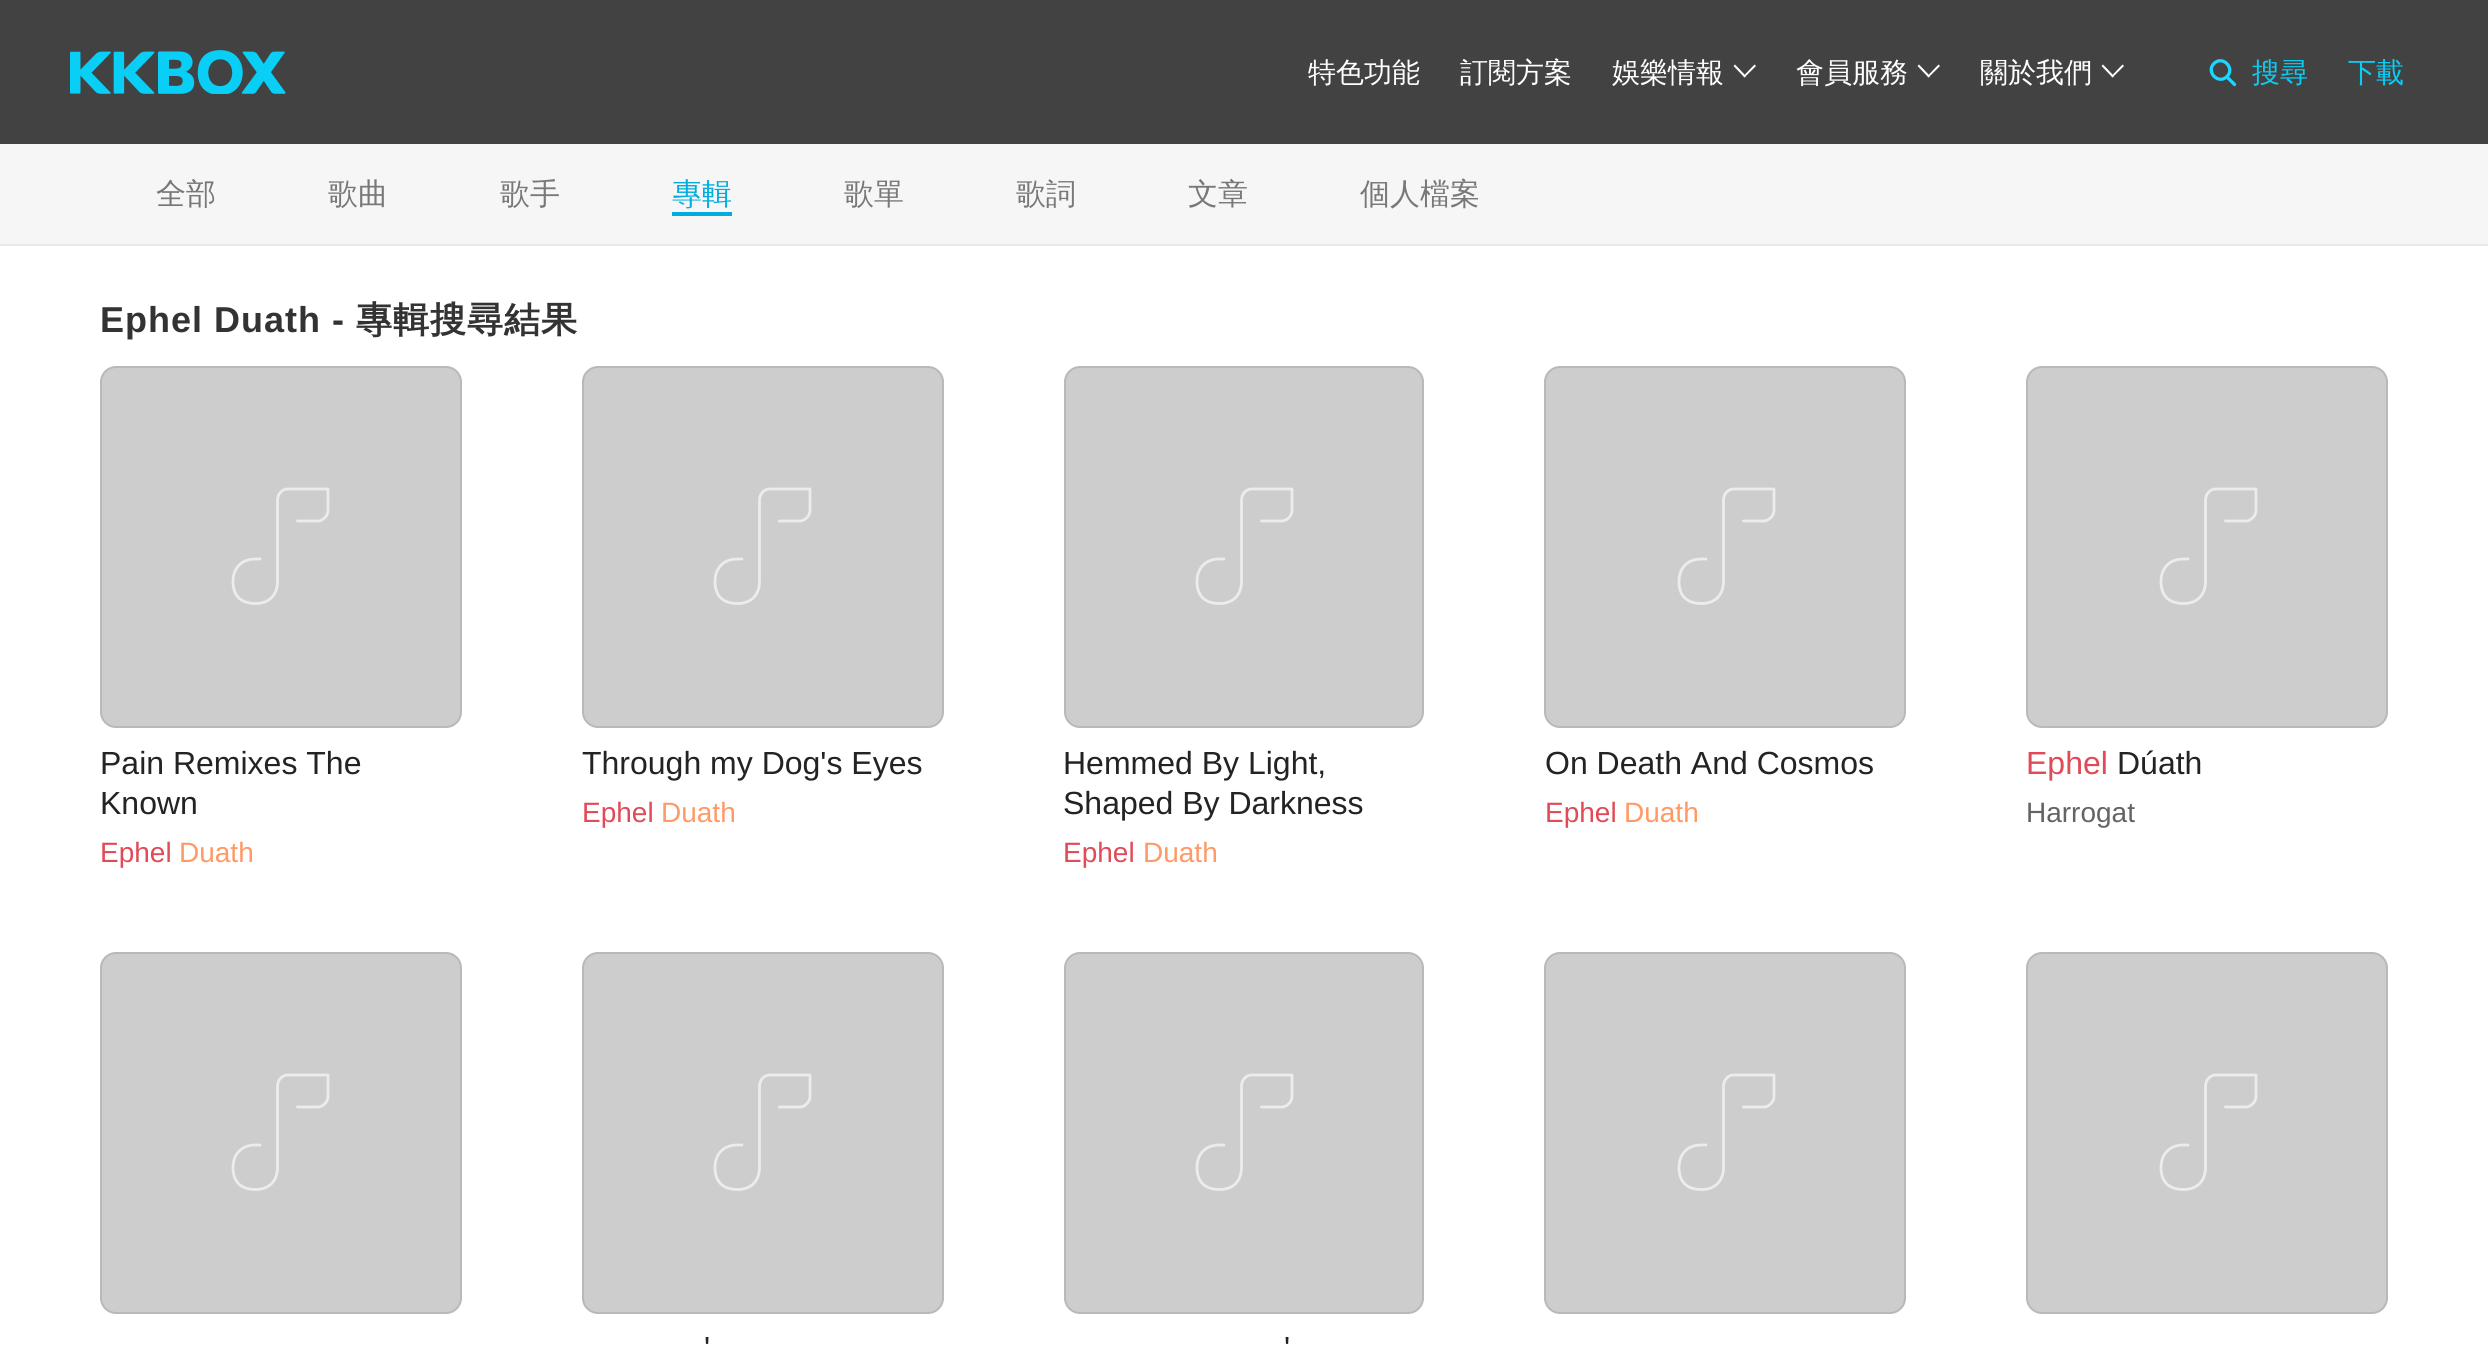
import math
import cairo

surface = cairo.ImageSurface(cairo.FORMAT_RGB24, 2488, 1350)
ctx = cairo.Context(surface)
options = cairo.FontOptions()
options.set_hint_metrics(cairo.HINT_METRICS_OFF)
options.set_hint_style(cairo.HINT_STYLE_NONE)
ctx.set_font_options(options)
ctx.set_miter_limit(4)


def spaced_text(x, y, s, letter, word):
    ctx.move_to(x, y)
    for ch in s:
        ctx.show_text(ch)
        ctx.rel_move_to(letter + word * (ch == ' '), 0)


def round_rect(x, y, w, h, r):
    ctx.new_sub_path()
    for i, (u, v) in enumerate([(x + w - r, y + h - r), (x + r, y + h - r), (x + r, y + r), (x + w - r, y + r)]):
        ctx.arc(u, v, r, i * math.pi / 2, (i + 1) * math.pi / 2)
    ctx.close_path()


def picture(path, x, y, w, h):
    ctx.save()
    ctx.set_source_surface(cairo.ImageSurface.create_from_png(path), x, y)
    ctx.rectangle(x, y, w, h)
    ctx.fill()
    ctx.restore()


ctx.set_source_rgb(1, 1, 1)
ctx.paint()
ctx.set_source_rgb(0.259, 0.259, 0.259)
ctx.rectangle(0, 0, 2488, 144)
ctx.fill()
picture("img1.png", 70, 50, 216, 44)
ctx.select_font_face("WenQuanYi Zen Hei Medium")
ctx.set_font_size(28)
ctx.set_source_rgb(1, 1, 1)
ctx.move_to(1308, 82)
ctx.show_text("特色功能")
ctx.move_to(1460, 82)
ctx.show_text("訂閱方案")
ctx.move_to(1612, 82)
ctx.show_text("娛樂情報")
ctx.new_path()
ctx.move_to(1754.5, 64.5)
ctx.line_to(1756, 66)
ctx.line_to(1744.5, 77.5)
ctx.line_to(1743.5, 76)
ctx.close_path()
ctx.fill()
ctx.new_path()
ctx.move_to(1735, 64.5)
ctx.line_to(1746, 76)
ctx.line_to(1744.5, 77.5)
ctx.line_to(1733.5, 66)
ctx.close_path()
ctx.fill()
ctx.move_to(1796, 82)
ctx.show_text("會員服務")
ctx.new_path()
ctx.move_to(1938.5, 64.5)
ctx.line_to(1940, 66)
ctx.line_to(1928.5, 77.5)
ctx.line_to(1927.5, 76)
ctx.close_path()
ctx.fill()
ctx.new_path()
ctx.move_to(1919, 64.5)
ctx.line_to(1930, 76)
ctx.line_to(1928.5, 77.5)
ctx.line_to(1917.5, 66)
ctx.close_path()
ctx.fill()
ctx.move_to(1980, 82)
ctx.show_text("關於我們")
ctx.new_path()
ctx.move_to(2122.5, 64.5)
ctx.line_to(2124, 66)
ctx.line_to(2112.5, 77.5)
ctx.line_to(2111.5, 76)
ctx.close_path()
ctx.fill()
ctx.new_path()
ctx.move_to(2103, 64.5)
ctx.line_to(2114, 76)
ctx.line_to(2112.5, 77.5)
ctx.line_to(2101.5, 66)
ctx.close_path()
ctx.fill()
ctx.new_path()
ctx.move_to(2214, 63.5)
ctx.curve_to(2222.5, 55, 2235.5, 68, 2227, 76.5)
ctx.curve_to(2218.5, 85, 2205.5, 72, 2214, 63.5)
ctx.close_path()
ctx.move_to(2227.5, 77.5)
ctx.line_to(2234.5, 84.5)
ctx.set_source_rgb(0.114, 0.839, 1)
ctx.set_line_width(3.3)
ctx.set_line_cap(cairo.LINE_CAP_ROUND)
ctx.set_line_join(cairo.LINE_JOIN_ROUND)
ctx.stroke()
ctx.set_source_rgb(0.035, 0.808, 0.965)
ctx.move_to(2252, 82)
ctx.show_text("搜尋")
ctx.move_to(2348, 82)
ctx.show_text("下載")
ctx.set_source_rgb(0.961, 0.961, 0.961)
ctx.rectangle(0, 144, 2488, 100)
ctx.fill()
ctx.set_source_rgb(0.914, 0.914, 0.914)
ctx.rectangle(0, 244, 2488, 2)
ctx.fill()
ctx.set_font_size(30)
ctx.set_source_rgb(0.471, 0.471, 0.471)
ctx.move_to(156, 204)
ctx.show_text("全部")
ctx.move_to(328, 204)
ctx.show_text("歌曲")
ctx.move_to(500, 204)
ctx.show_text("歌手")
ctx.set_source_rgb(0, 0.678, 0.863)
ctx.move_to(672, 204)
ctx.show_text("專輯")
ctx.rectangle(672, 212, 60, 4)
ctx.fill()
ctx.set_source_rgb(0.471, 0.471, 0.471)
ctx.move_to(844, 204)
ctx.show_text("歌單")
ctx.move_to(1016, 204)
ctx.show_text("歌詞")
ctx.move_to(1188, 204)
ctx.show_text("文章")
ctx.move_to(1360, 204)
ctx.show_text("個人檔案")
ctx.select_font_face("Liberation Sans", cairo.FONT_SLANT_NORMAL, cairo.FONT_WEIGHT_BOLD)
ctx.set_font_size(36)
ctx.set_source_rgb(0.2, 0.2, 0.2)
spaced_text(100, 332, "Ephel Duath -", 1, 0)
ctx.select_font_face("WenQuanYi Zen Hei", cairo.FONT_SLANT_NORMAL, cairo.FONT_WEIGHT_BOLD)
spaced_text(356, 332, "專輯搜尋結果", 1, 0)
ctx.set_source_rgb(0.804, 0.804, 0.804)
round_rect(100, 366, 362, 362, 16)
ctx.fill()
ctx.new_path()
ctx.move_to(260, 559)
ctx.line_to(255.5, 559)
ctx.curve_to(240.5, 559, 233, 569, 233, 581.5)
ctx.curve_to(233, 594.5, 239.5, 603.5, 255.5, 603.5)
ctx.curve_to(271, 603.5, 277.5, 593, 277.5, 581.5)
ctx.line_to(277.5, 500.5)
ctx.curve_to(277.5, 493, 283, 489, 287.5, 489)
ctx.line_to(328, 489)
ctx.line_to(328, 510.5)
ctx.curve_to(328, 516.5, 322, 521, 318, 521)
ctx.line_to(297.5, 521)
ctx.set_source_rgb(0.922, 0.922, 0.922)
ctx.set_line_width(2.8)
ctx.stroke()
round_rect(101, 367, 360, 360, 15)
ctx.set_source_rgba(0, 0, 0, 0.1)
ctx.set_line_width(2)
ctx.set_line_cap(cairo.LINE_CAP_BUTT)
ctx.set_line_join(cairo.LINE_JOIN_MITER)
ctx.stroke()
ctx.select_font_face("Liberation Sans")
ctx.set_font_size(32)
ctx.set_source_rgb(0.137, 0.137, 0.137)
ctx.move_to(100, 774)
ctx.show_text("Pain Remixes The")
ctx.move_to(100, 814)
ctx.show_text("Known")
ctx.set_font_size(28)
ctx.set_source_rgb(0.882, 0.29, 0.341)
ctx.move_to(100, 862)
ctx.show_text("Ephel")
ctx.set_source_rgb(1, 0.6, 0.4)
ctx.move_to(179, 862)
ctx.show_text("Duath")
ctx.set_source_rgb(0.804, 0.804, 0.804)
round_rect(582, 366, 362, 362, 16)
ctx.fill()
ctx.new_path()
ctx.move_to(742, 559)
ctx.line_to(737.5, 559)
ctx.curve_to(722.5, 559, 715, 569, 715, 581.5)
ctx.curve_to(715, 594.5, 721.5, 603.5, 737.5, 603.5)
ctx.curve_to(753, 603.5, 759.5, 593, 759.5, 581.5)
ctx.line_to(759.5, 500.5)
ctx.curve_to(759.5, 493, 765, 489, 769.5, 489)
ctx.line_to(810, 489)
ctx.line_to(810, 510.5)
ctx.curve_to(810, 516.5, 804, 521, 800, 521)
ctx.line_to(779.5, 521)
ctx.set_source_rgb(0.922, 0.922, 0.922)
ctx.set_line_width(2.8)
ctx.set_line_cap(cairo.LINE_CAP_ROUND)
ctx.set_line_join(cairo.LINE_JOIN_ROUND)
ctx.stroke()
round_rect(583, 367, 360, 360, 15)
ctx.set_source_rgba(0, 0, 0, 0.1)
ctx.set_line_width(2)
ctx.set_line_cap(cairo.LINE_CAP_BUTT)
ctx.set_line_join(cairo.LINE_JOIN_MITER)
ctx.stroke()
ctx.set_font_size(32)
ctx.set_source_rgb(0.137, 0.137, 0.137)
ctx.move_to(582, 774)
ctx.show_text("Through my Dog's Eyes")
ctx.set_font_size(28)
ctx.set_source_rgb(0.882, 0.29, 0.341)
ctx.move_to(582, 822)
ctx.show_text("Ephel")
ctx.set_source_rgb(1, 0.6, 0.4)
ctx.move_to(661, 822)
ctx.show_text("Duath")
ctx.set_source_rgb(0.804, 0.804, 0.804)
round_rect(1064, 366, 360, 362, 16)
ctx.fill()
ctx.new_path()
ctx.move_to(1224, 559)
ctx.line_to(1219.5, 559)
ctx.curve_to(1204.5, 559, 1197, 569, 1197, 581.5)
ctx.curve_to(1197, 594.5, 1203.5, 603.5, 1219.5, 603.5)
ctx.curve_to(1235, 603.5, 1241.5, 593, 1241.5, 581.5)
ctx.line_to(1241.5, 500.5)
ctx.curve_to(1241.5, 493, 1247, 489, 1251.5, 489)
ctx.line_to(1292, 489)
ctx.line_to(1292, 510.5)
ctx.curve_to(1292, 516.5, 1286, 521, 1282, 521)
ctx.line_to(1261.5, 521)
ctx.set_source_rgb(0.922, 0.922, 0.922)
ctx.set_line_width(2.8)
ctx.set_line_cap(cairo.LINE_CAP_ROUND)
ctx.set_line_join(cairo.LINE_JOIN_ROUND)
ctx.stroke()
round_rect(1065, 367, 358, 360, 15)
ctx.set_source_rgba(0, 0, 0, 0.1)
ctx.set_line_width(2)
ctx.set_line_cap(cairo.LINE_CAP_BUTT)
ctx.set_line_join(cairo.LINE_JOIN_MITER)
ctx.stroke()
ctx.set_font_size(32)
ctx.set_source_rgb(0.137, 0.137, 0.137)
ctx.move_to(1063, 774)
ctx.show_text("Hemmed By Light,")
ctx.move_to(1063, 814)
ctx.show_text("Shaped By Darkness")
ctx.set_font_size(28)
ctx.set_source_rgb(0.882, 0.29, 0.341)
ctx.move_to(1063, 862)
ctx.show_text("Ephel")
ctx.set_source_rgb(1, 0.6, 0.4)
ctx.move_to(1143, 862)
ctx.show_text("Duath")
ctx.set_source_rgb(0.804, 0.804, 0.804)
round_rect(1544, 366, 362, 362, 16)
ctx.fill()
ctx.new_path()
ctx.move_to(1706, 559)
ctx.line_to(1701.5, 559)
ctx.curve_to(1686.5, 559, 1679, 569, 1679, 581.5)
ctx.curve_to(1679, 594.5, 1685.5, 603.5, 1701.5, 603.5)
ctx.curve_to(1717, 603.5, 1723.5, 593, 1723.5, 581.5)
ctx.line_to(1723.5, 500.5)
ctx.curve_to(1723.5, 493, 1729, 489, 1733.5, 489)
ctx.line_to(1774, 489)
ctx.line_to(1774, 510.5)
ctx.curve_to(1774, 516.5, 1768, 521, 1764, 521)
ctx.line_to(1743.5, 521)
ctx.set_source_rgb(0.922, 0.922, 0.922)
ctx.set_line_width(2.8)
ctx.set_line_cap(cairo.LINE_CAP_ROUND)
ctx.set_line_join(cairo.LINE_JOIN_ROUND)
ctx.stroke()
round_rect(1545, 367, 360, 360, 15)
ctx.set_source_rgba(0, 0, 0, 0.1)
ctx.set_line_width(2)
ctx.set_line_cap(cairo.LINE_CAP_BUTT)
ctx.set_line_join(cairo.LINE_JOIN_MITER)
ctx.stroke()
ctx.set_font_size(32)
ctx.set_source_rgb(0.137, 0.137, 0.137)
ctx.move_to(1545, 774)
ctx.show_text("On Death And Cosmos")
ctx.set_font_size(28)
ctx.set_source_rgb(0.882, 0.29, 0.341)
ctx.move_to(1545, 822)
ctx.show_text("Ephel")
ctx.set_source_rgb(1, 0.6, 0.4)
ctx.move_to(1624, 822)
ctx.show_text("Duath")
ctx.set_source_rgb(0.804, 0.804, 0.804)
round_rect(2026, 366, 362, 362, 16)
ctx.fill()
ctx.new_path()
ctx.move_to(2188, 559)
ctx.line_to(2183.5, 559)
ctx.curve_to(2168.5, 559, 2161, 569, 2161, 581.5)
ctx.curve_to(2161, 594.5, 2167.5, 603.5, 2183.5, 603.5)
ctx.curve_to(2199, 603.5, 2205.5, 593, 2205.5, 581.5)
ctx.line_to(2205.5, 500.5)
ctx.curve_to(2205.5, 493, 2211, 489, 2215.5, 489)
ctx.line_to(2256, 489)
ctx.line_to(2256, 510.5)
ctx.curve_to(2256, 516.5, 2250, 521, 2246, 521)
ctx.line_to(2225.5, 521)
ctx.set_source_rgb(0.922, 0.922, 0.922)
ctx.set_line_width(2.8)
ctx.set_line_cap(cairo.LINE_CAP_ROUND)
ctx.set_line_join(cairo.LINE_JOIN_ROUND)
ctx.stroke()
round_rect(2027, 367, 360, 360, 15)
ctx.set_source_rgba(0, 0, 0, 0.1)
ctx.set_line_width(2)
ctx.set_line_cap(cairo.LINE_CAP_BUTT)
ctx.set_line_join(cairo.LINE_JOIN_MITER)
ctx.stroke()
ctx.set_font_size(32)
ctx.set_source_rgb(0.882, 0.29, 0.341)
ctx.move_to(2026, 774)
ctx.show_text("Ephel")
ctx.set_source_rgb(0.137, 0.137, 0.137)
ctx.move_to(2117, 774)
ctx.show_text("Dúath")
ctx.set_font_size(28)
ctx.set_source_rgb(0.392, 0.392, 0.392)
ctx.move_to(2026, 822)
ctx.show_text("Harrogat")
ctx.set_source_rgb(0.804, 0.804, 0.804)
round_rect(100, 952, 362, 362, 16)
ctx.fill()
ctx.new_path()
ctx.move_to(260, 1145)
ctx.line_to(255.5, 1145)
ctx.curve_to(240.5, 1145, 233, 1155, 233, 1167.5)
ctx.curve_to(233, 1180.5, 239.5, 1189.5, 255.5, 1189.5)
ctx.curve_to(271, 1189.5, 277.5, 1179, 277.5, 1167.5)
ctx.line_to(277.5, 1086.5)
ctx.curve_to(277.5, 1079, 283, 1075, 287.5, 1075)
ctx.line_to(328, 1075)
ctx.line_to(328, 1096.5)
ctx.curve_to(328, 1102.5, 322, 1107, 318, 1107)
ctx.line_to(297.5, 1107)
ctx.set_source_rgb(0.922, 0.922, 0.922)
ctx.set_line_width(2.8)
ctx.set_line_cap(cairo.LINE_CAP_ROUND)
ctx.set_line_join(cairo.LINE_JOIN_ROUND)
ctx.stroke()
round_rect(101, 953, 360, 360, 15)
ctx.set_source_rgba(0, 0, 0, 0.1)
ctx.set_line_width(2)
ctx.set_line_cap(cairo.LINE_CAP_BUTT)
ctx.set_line_join(cairo.LINE_JOIN_MITER)
ctx.stroke()
ctx.set_source_rgb(0.804, 0.804, 0.804)
round_rect(1544, 952, 362, 362, 16)
ctx.fill()
ctx.new_path()
ctx.move_to(1706, 1145)
ctx.line_to(1701.5, 1145)
ctx.curve_to(1686.5, 1145, 1679, 1155, 1679, 1167.5)
ctx.curve_to(1679, 1180.5, 1685.5, 1189.5, 1701.5, 1189.5)
ctx.curve_to(1717, 1189.5, 1723.5, 1179, 1723.5, 1167.5)
ctx.line_to(1723.5, 1086.5)
ctx.curve_to(1723.5, 1079, 1729, 1075, 1733.5, 1075)
ctx.line_to(1774, 1075)
ctx.line_to(1774, 1096.5)
ctx.curve_to(1774, 1102.5, 1768, 1107, 1764, 1107)
ctx.line_to(1743.5, 1107)
ctx.set_source_rgb(0.922, 0.922, 0.922)
ctx.set_line_width(2.8)
ctx.set_line_cap(cairo.LINE_CAP_ROUND)
ctx.set_line_join(cairo.LINE_JOIN_ROUND)
ctx.stroke()
round_rect(1545, 953, 360, 360, 15)
ctx.set_source_rgba(0, 0, 0, 0.1)
ctx.set_line_width(2)
ctx.set_line_cap(cairo.LINE_CAP_BUTT)
ctx.set_line_join(cairo.LINE_JOIN_MITER)
ctx.stroke()
ctx.set_source_rgb(0.804, 0.804, 0.804)
round_rect(2026, 952, 362, 362, 16)
ctx.fill()
ctx.new_path()
ctx.move_to(2188, 1145)
ctx.line_to(2183.5, 1145)
ctx.curve_to(2168.5, 1145, 2161, 1155, 2161, 1167.5)
ctx.curve_to(2161, 1180.5, 2167.5, 1189.5, 2183.5, 1189.5)
ctx.curve_to(2199, 1189.5, 2205.5, 1179, 2205.5, 1167.5)
ctx.line_to(2205.5, 1086.5)
ctx.curve_to(2205.5, 1079, 2211, 1075, 2215.5, 1075)
ctx.line_to(2256, 1075)
ctx.line_to(2256, 1096.5)
ctx.curve_to(2256, 1102.5, 2250, 1107, 2246, 1107)
ctx.line_to(2225.5, 1107)
ctx.set_source_rgb(0.922, 0.922, 0.922)
ctx.set_line_width(2.8)
ctx.set_line_cap(cairo.LINE_CAP_ROUND)
ctx.set_line_join(cairo.LINE_JOIN_ROUND)
ctx.stroke()
round_rect(2027, 953, 360, 360, 15)
ctx.set_source_rgba(0, 0, 0, 0.1)
ctx.set_line_width(2)
ctx.set_line_cap(cairo.LINE_CAP_BUTT)
ctx.set_line_join(cairo.LINE_JOIN_MITER)
ctx.stroke()
ctx.set_source_rgb(0.804, 0.804, 0.804)
round_rect(582, 952, 362, 362, 16)
ctx.fill()
ctx.new_path()
ctx.move_to(742, 1145)
ctx.line_to(737.5, 1145)
ctx.curve_to(722.5, 1145, 715, 1155, 715, 1167.5)
ctx.curve_to(715, 1180.5, 721.5, 1189.5, 737.5, 1189.5)
ctx.curve_to(753, 1189.5, 759.5, 1179, 759.5, 1167.5)
ctx.line_to(759.5, 1086.5)
ctx.curve_to(759.5, 1079, 765, 1075, 769.5, 1075)
ctx.line_to(810, 1075)
ctx.line_to(810, 1096.5)
ctx.curve_to(810, 1102.5, 804, 1107, 800, 1107)
ctx.line_to(779.5, 1107)
ctx.set_source_rgb(0.922, 0.922, 0.922)
ctx.set_line_width(2.8)
ctx.set_line_cap(cairo.LINE_CAP_ROUND)
ctx.set_line_join(cairo.LINE_JOIN_ROUND)
ctx.stroke()
round_rect(583, 953, 360, 360, 15)
ctx.set_source_rgba(0, 0, 0, 0.1)
ctx.set_line_width(2)
ctx.set_line_cap(cairo.LINE_CAP_BUTT)
ctx.set_line_join(cairo.LINE_JOIN_MITER)
ctx.stroke()
ctx.set_font_size(32)
ctx.set_source_rgb(0.137, 0.137, 0.137)
ctx.move_to(704, 1359)
ctx.show_text("'")
ctx.set_source_rgb(0.804, 0.804, 0.804)
round_rect(1064, 952, 360, 362, 16)
ctx.fill()
ctx.new_path()
ctx.move_to(1224, 1145)
ctx.line_to(1219.5, 1145)
ctx.curve_to(1204.5, 1145, 1197, 1155, 1197, 1167.5)
ctx.curve_to(1197, 1180.5, 1203.5, 1189.5, 1219.5, 1189.5)
ctx.curve_to(1235, 1189.5, 1241.5, 1179, 1241.5, 1167.5)
ctx.line_to(1241.5, 1086.5)
ctx.curve_to(1241.5, 1079, 1247, 1075, 1251.5, 1075)
ctx.line_to(1292, 1075)
ctx.line_to(1292, 1096.5)
ctx.curve_to(1292, 1102.5, 1286, 1107, 1282, 1107)
ctx.line_to(1261.5, 1107)
ctx.set_source_rgb(0.922, 0.922, 0.922)
ctx.set_line_width(2.8)
ctx.set_line_cap(cairo.LINE_CAP_ROUND)
ctx.set_line_join(cairo.LINE_JOIN_ROUND)
ctx.stroke()
round_rect(1065, 953, 358, 360, 15)
ctx.set_source_rgba(0, 0, 0, 0.1)
ctx.set_line_width(2)
ctx.set_line_cap(cairo.LINE_CAP_BUTT)
ctx.set_line_join(cairo.LINE_JOIN_MITER)
ctx.stroke()
ctx.set_source_rgb(0.137, 0.137, 0.137)
ctx.move_to(1284, 1359)
ctx.show_text("'")
surface.write_to_png("page.png")
